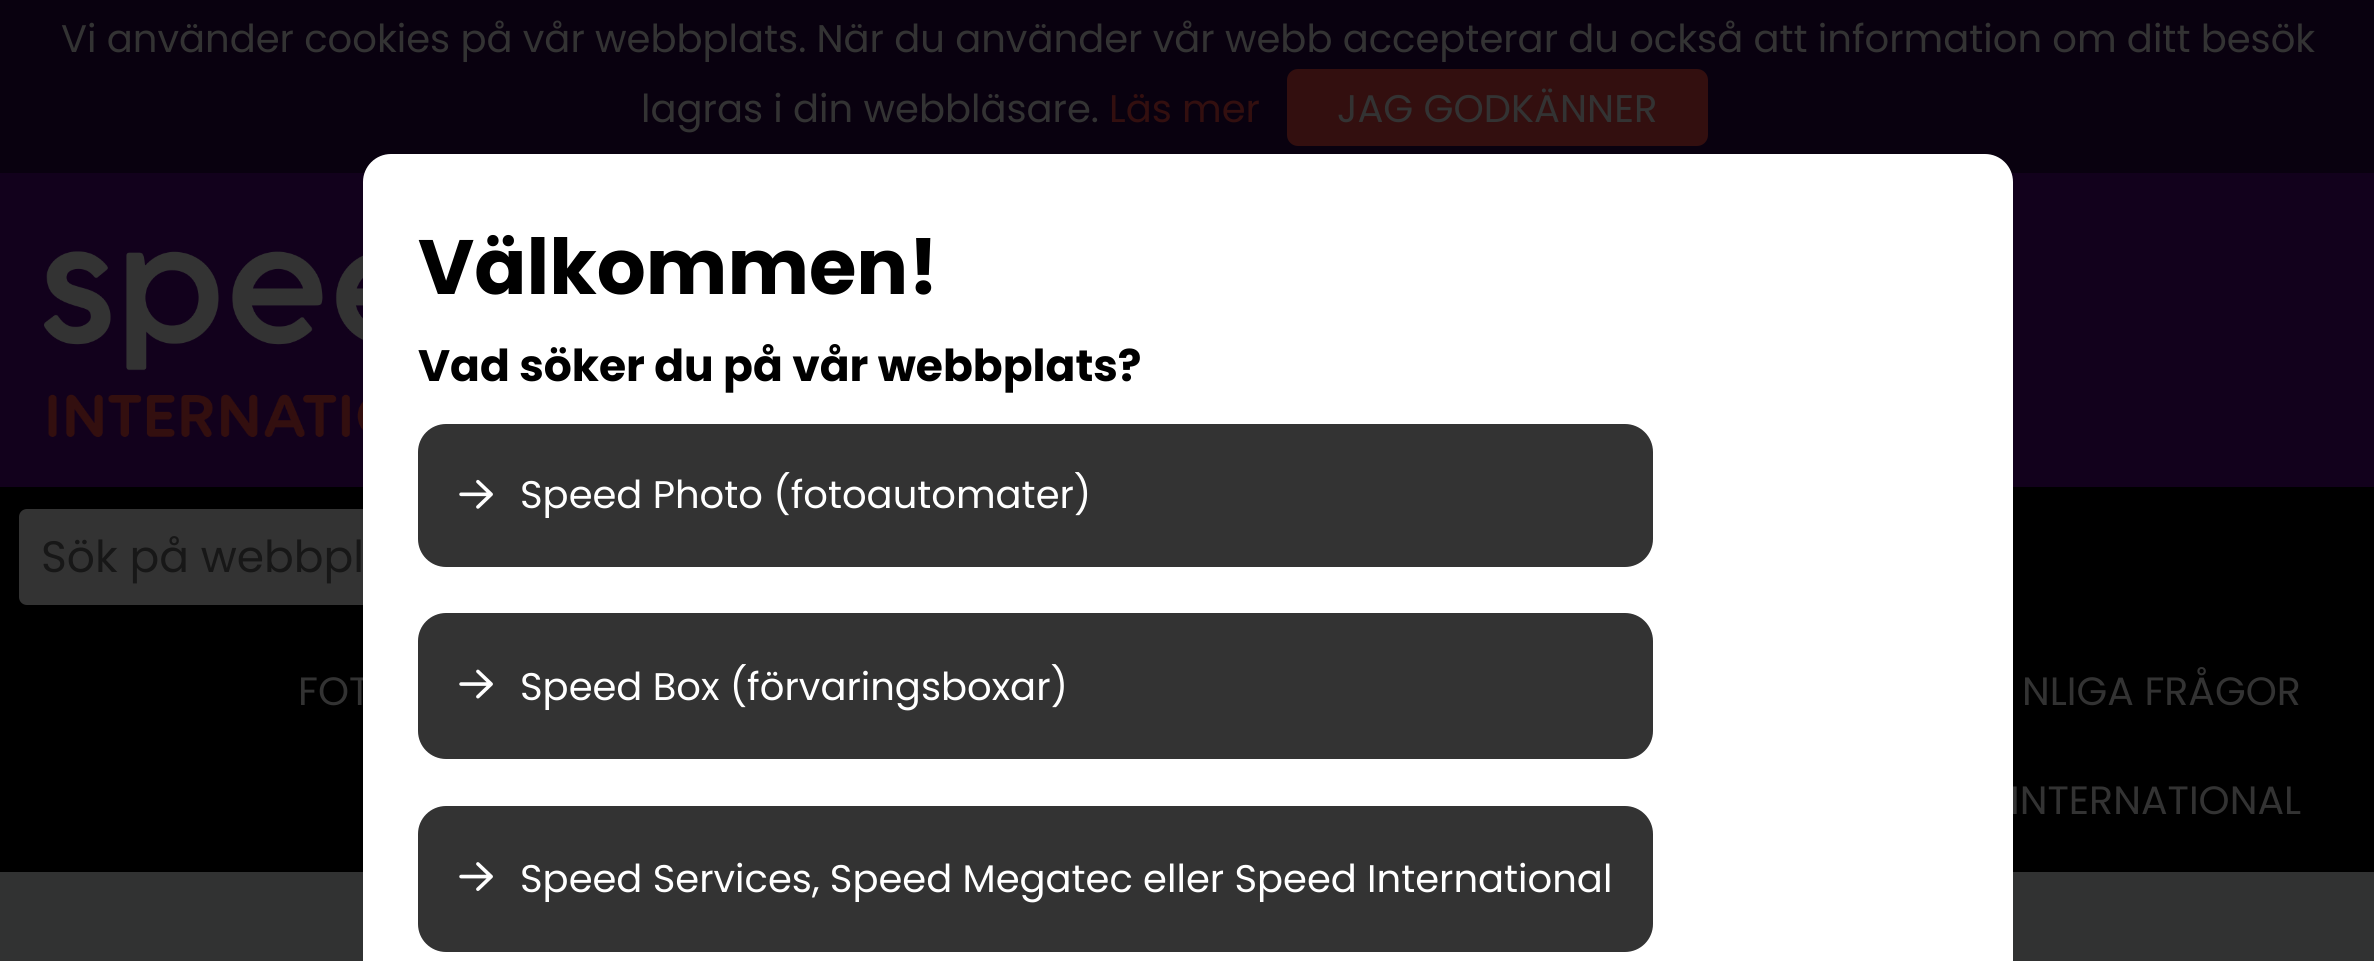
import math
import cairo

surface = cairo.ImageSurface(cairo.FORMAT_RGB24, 2374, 961)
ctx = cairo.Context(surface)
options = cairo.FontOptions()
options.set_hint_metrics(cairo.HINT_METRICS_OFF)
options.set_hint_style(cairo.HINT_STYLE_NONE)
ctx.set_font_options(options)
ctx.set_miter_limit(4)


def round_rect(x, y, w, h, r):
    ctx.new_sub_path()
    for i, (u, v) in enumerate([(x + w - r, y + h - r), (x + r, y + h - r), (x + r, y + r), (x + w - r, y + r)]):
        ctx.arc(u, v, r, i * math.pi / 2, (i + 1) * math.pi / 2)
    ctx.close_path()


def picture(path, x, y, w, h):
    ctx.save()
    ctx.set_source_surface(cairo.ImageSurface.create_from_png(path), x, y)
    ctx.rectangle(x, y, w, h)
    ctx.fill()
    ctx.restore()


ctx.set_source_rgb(0.039, 0.004, 0.059)
ctx.paint()
ctx.select_font_face("Poppins")
ctx.set_font_size(38.5)
ctx.set_source_rgb(0.2, 0.2, 0.2)
ctx.move_to(61, 52)
ctx.show_text("Vi använder cookies på vår webbplats. När du använder vår webb accepterar du också att information om ditt besök")
ctx.move_to(641, 122)
ctx.show_text("lagras i din webbläsare.")
ctx.set_source_rgb(0.2, 0.059, 0.059)
ctx.move_to(1109, 122)
ctx.show_text("Läs mer")
round_rect(1287, 69, 421, 77, 11)
ctx.fill()
ctx.set_source_rgb(0.2, 0.2, 0.2)
ctx.move_to(1337, 122)
ctx.show_text("JAG GODKÄNNER")
ctx.set_source_rgb(0.071, 0.004, 0.11)
ctx.rectangle(0, 173, 2374, 314)
ctx.fill()
picture("img1.png", 44, 251, 319, 187)
ctx.set_source_rgb(0, 0, 0)
ctx.rectangle(0, 487, 2374, 385)
ctx.fill()
ctx.set_source_rgb(0.2, 0.2, 0.2)
ctx.new_path()
ctx.move_to(27, 509)
ctx.line_to(514, 509)
ctx.line_to(514, 605)
ctx.line_to(27, 605)
ctx.curve_to(22.5, 605, 19, 601.5, 19, 597)
ctx.line_to(19, 517)
ctx.curve_to(19, 512.5, 22.5, 509, 27, 509)
ctx.close_path()
ctx.fill()
ctx.set_font_size(39.5)
ctx.move_to(298, 705)
ctx.show_text("FOT")
ctx.move_to(2010, 814)
ctx.show_text("INTERNATIONAL")
ctx.set_source_rgb(0.192, 0.196, 0.196)
ctx.rectangle(0, 872, 2374, 89)
ctx.fill()
ctx.set_source_rgb(1, 1, 1)
round_rect(363, 154, 1650, 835, 28)
ctx.fill()
ctx.select_font_face("Poppins", cairo.FONT_SLANT_NORMAL, cairo.FONT_WEIGHT_BOLD)
ctx.set_font_size(77)
ctx.set_source_rgb(0, 0, 0)
ctx.move_to(418, 294)
ctx.show_text("Välkommen!")
ctx.set_font_size(44)
ctx.move_to(418, 381)
ctx.show_text("Vad söker du på vår webbplats?")
ctx.set_source_rgb(0.2, 0.2, 0.2)
round_rect(418, 424, 1235, 143, 28)
ctx.fill()
picture("img2.png", 459, 479, 34, 30)
ctx.select_font_face("Poppins")
ctx.set_font_size(38.5)
ctx.set_source_rgb(1, 1, 1)
ctx.move_to(520, 508)
ctx.show_text("Speed Photo (fotoautomater)")
ctx.set_source_rgb(0.2, 0.2, 0.2)
round_rect(418, 613, 1235, 146, 28)
ctx.fill()
picture("img3.png", 459, 669, 34, 30)
ctx.set_source_rgb(1, 1, 1)
ctx.move_to(520, 700)
ctx.show_text("Speed Box (förvaringsboxar)")
ctx.set_source_rgb(0.2, 0.2, 0.2)
round_rect(418, 806, 1235, 146, 28)
ctx.fill()
picture("img4.png", 459, 862, 34, 29)
ctx.set_source_rgb(1, 1, 1)
ctx.move_to(520, 892)
ctx.show_text("Speed Services, Speed Megatec eller Speed International")
ctx.set_font_size(44)
ctx.set_source_rgb(0.09, 0.09, 0.09)
ctx.move_to(41, 572)
ctx.show_text("Sök på webbpl")
ctx.set_font_size(39.5)
ctx.set_source_rgb(0.2, 0.2, 0.2)
ctx.move_to(2022, 705)
ctx.show_text("NLIGA FRÅGOR")
surface.write_to_png("page.png")
